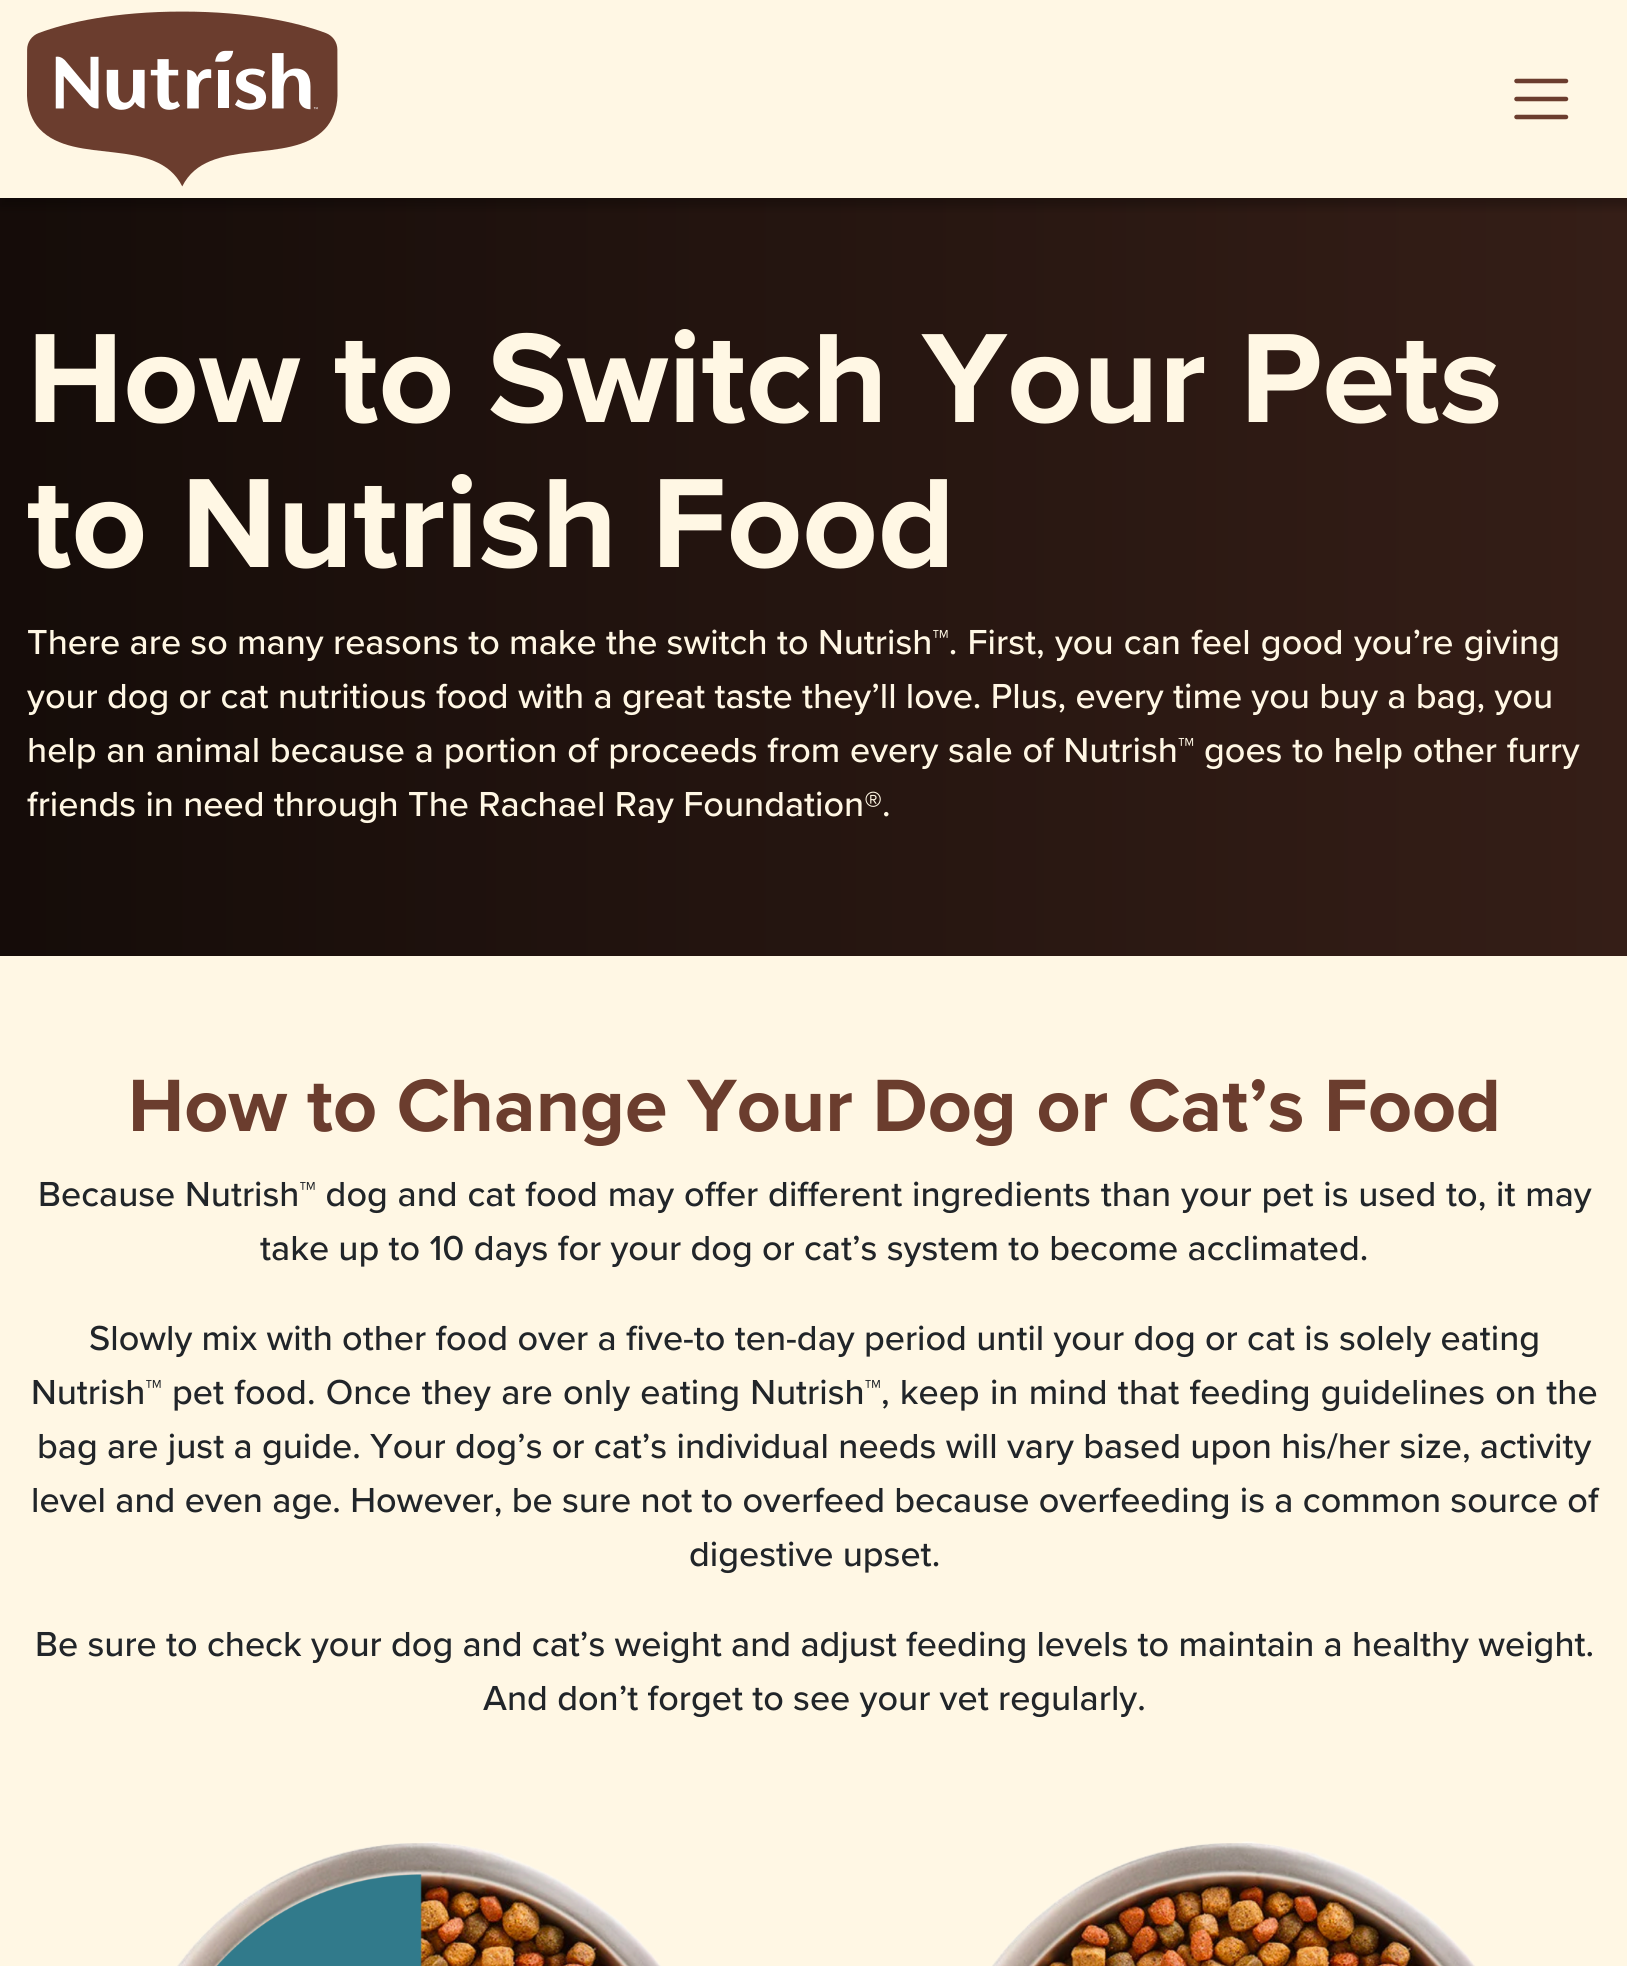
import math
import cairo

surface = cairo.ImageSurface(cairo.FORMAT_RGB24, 1627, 1966)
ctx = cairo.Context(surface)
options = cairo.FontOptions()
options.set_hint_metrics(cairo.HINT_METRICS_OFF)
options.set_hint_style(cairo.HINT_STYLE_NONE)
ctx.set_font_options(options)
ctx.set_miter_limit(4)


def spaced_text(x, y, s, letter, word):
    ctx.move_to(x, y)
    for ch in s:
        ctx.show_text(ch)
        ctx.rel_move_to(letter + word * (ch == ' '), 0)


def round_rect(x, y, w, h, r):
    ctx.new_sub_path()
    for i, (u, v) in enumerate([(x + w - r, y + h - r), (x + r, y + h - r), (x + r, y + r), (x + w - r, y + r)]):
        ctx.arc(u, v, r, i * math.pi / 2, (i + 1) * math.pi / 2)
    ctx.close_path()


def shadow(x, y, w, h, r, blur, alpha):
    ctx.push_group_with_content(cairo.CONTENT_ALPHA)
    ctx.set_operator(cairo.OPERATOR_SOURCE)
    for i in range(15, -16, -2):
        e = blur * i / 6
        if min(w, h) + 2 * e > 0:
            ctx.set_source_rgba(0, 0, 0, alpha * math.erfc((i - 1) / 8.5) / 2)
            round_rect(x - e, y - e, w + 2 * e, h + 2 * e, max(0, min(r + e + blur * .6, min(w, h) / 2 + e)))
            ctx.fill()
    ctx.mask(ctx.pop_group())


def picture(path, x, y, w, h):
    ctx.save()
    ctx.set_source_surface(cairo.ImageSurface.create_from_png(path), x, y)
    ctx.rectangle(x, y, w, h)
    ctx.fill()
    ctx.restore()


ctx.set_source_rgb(1, 0.965, 0.894)
ctx.paint()
gradient = cairo.LinearGradient(0, 577, 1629, 577)
gradient.add_color_stop_rgba(0, 0.082, 0.047, 0.035, 1)
gradient.add_color_stop_rgba(1, 0.208, 0.118, 0.09, 1)
ctx.set_source(gradient)
ctx.rectangle(0, 198, 1627, 758)
ctx.fill()
ctx.save()
ctx.rectangle(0, 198, 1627, 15)
ctx.clip()
ctx.set_source_rgb(0, 0, 0)
shadow(0, 9, 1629, 198, 0, 4.5, 0.25)
ctx.restore()
picture("img1.png", 27, 11, 311, 176)
ctx.new_path()
ctx.move_to(1516.5, 81)
ctx.line_to(1566, 81)
ctx.move_to(1516.5, 99)
ctx.line_to(1566, 99)
ctx.move_to(1516.5, 117)
ctx.line_to(1566, 117)
ctx.set_source_rgb(0.42, 0.239, 0.18)
ctx.set_line_width(4.5)
ctx.set_line_cap(cairo.LINE_CAP_ROUND)
ctx.stroke()
ctx.select_font_face("Proxima Nova", cairo.FONT_SLANT_NORMAL, cairo.FONT_WEIGHT_BOLD)
ctx.set_font_size(131.75)
ctx.set_source_rgb(1, 0.965, 0.894)
ctx.move_to(27, 422)
ctx.show_text("How to Switch Your Pets")
ctx.move_to(27, 567)
ctx.show_text("to Nutrish Food")
ctx.select_font_face("Proxima Nova Medium")
ctx.set_font_size(36)
ctx.move_to(27, 654)
ctx.show_text("There are so many reasons to make the switch to")
spaced_text(818, 654, "Nutrish™. First, you can feel good you’re giving", 0, 1)
ctx.move_to(27, 708)
ctx.show_text("your dog or cat nutritious food with a great taste they’ll love. Plus, every time you buy a bag, you")
spaced_text(27, 762, "help an animal because a portion of proceeds from every sale of Nutrish™ goes to help other furry", 0, 0.5)
ctx.move_to(27, 816)
ctx.show_text("friends in need through The Rachael Ray Foundation®.")
ctx.select_font_face("Proxima Nova", cairo.FONT_SLANT_NORMAL, cairo.FONT_WEIGHT_BOLD)
ctx.set_font_size(76.8)
ctx.set_source_rgb(0.42, 0.239, 0.18)
ctx.move_to(128, 1131)
ctx.show_text("How to Change Your Dog or Cat’s Food")
ctx.select_font_face("Proxima Nova Medium")
ctx.set_font_size(36)
ctx.set_source_rgb(0.129, 0.145, 0.161)
spaced_text(38, 1206, "Because Nutrish™ dog and cat food may offer different ingredients than your pet is used to, it may", 0, 0.5)
ctx.move_to(260, 1260)
ctx.show_text("take up to 10 days for your dog or cat’s system to become acclimated.")
ctx.move_to(89, 1350)
ctx.show_text("Slowly mix with other food over a five-to ten-day period until your dog or cat is solely eating")
spaced_text(31, 1404, "Nutrish™ pet food. Once they are only eating Nutrish™, keep in mind that feeding guidelines on the", 0, 1)
ctx.move_to(37, 1458)
ctx.show_text("bag are just a guide. Your dog’s or cat’s individual needs will vary based upon his/her size, activity")
ctx.move_to(31, 1512)
ctx.show_text("level and even age. However, be sure not to overfeed because overfeeding is a common source of")
ctx.move_to(689, 1566)
ctx.show_text("digestive upset.")
ctx.move_to(35, 1656)
ctx.show_text("Be sure to check your dog and cat’s weight and adjust feeding levels to maintain a healthy weight.")
ctx.move_to(483, 1710)
ctx.show_text("And don’t forget to see your vet regularly.")
picture("img2.png", 177, 1841, 484, 125)
picture("img3.png", 992, 1841, 483, 125)
surface.write_to_png("page.png")
